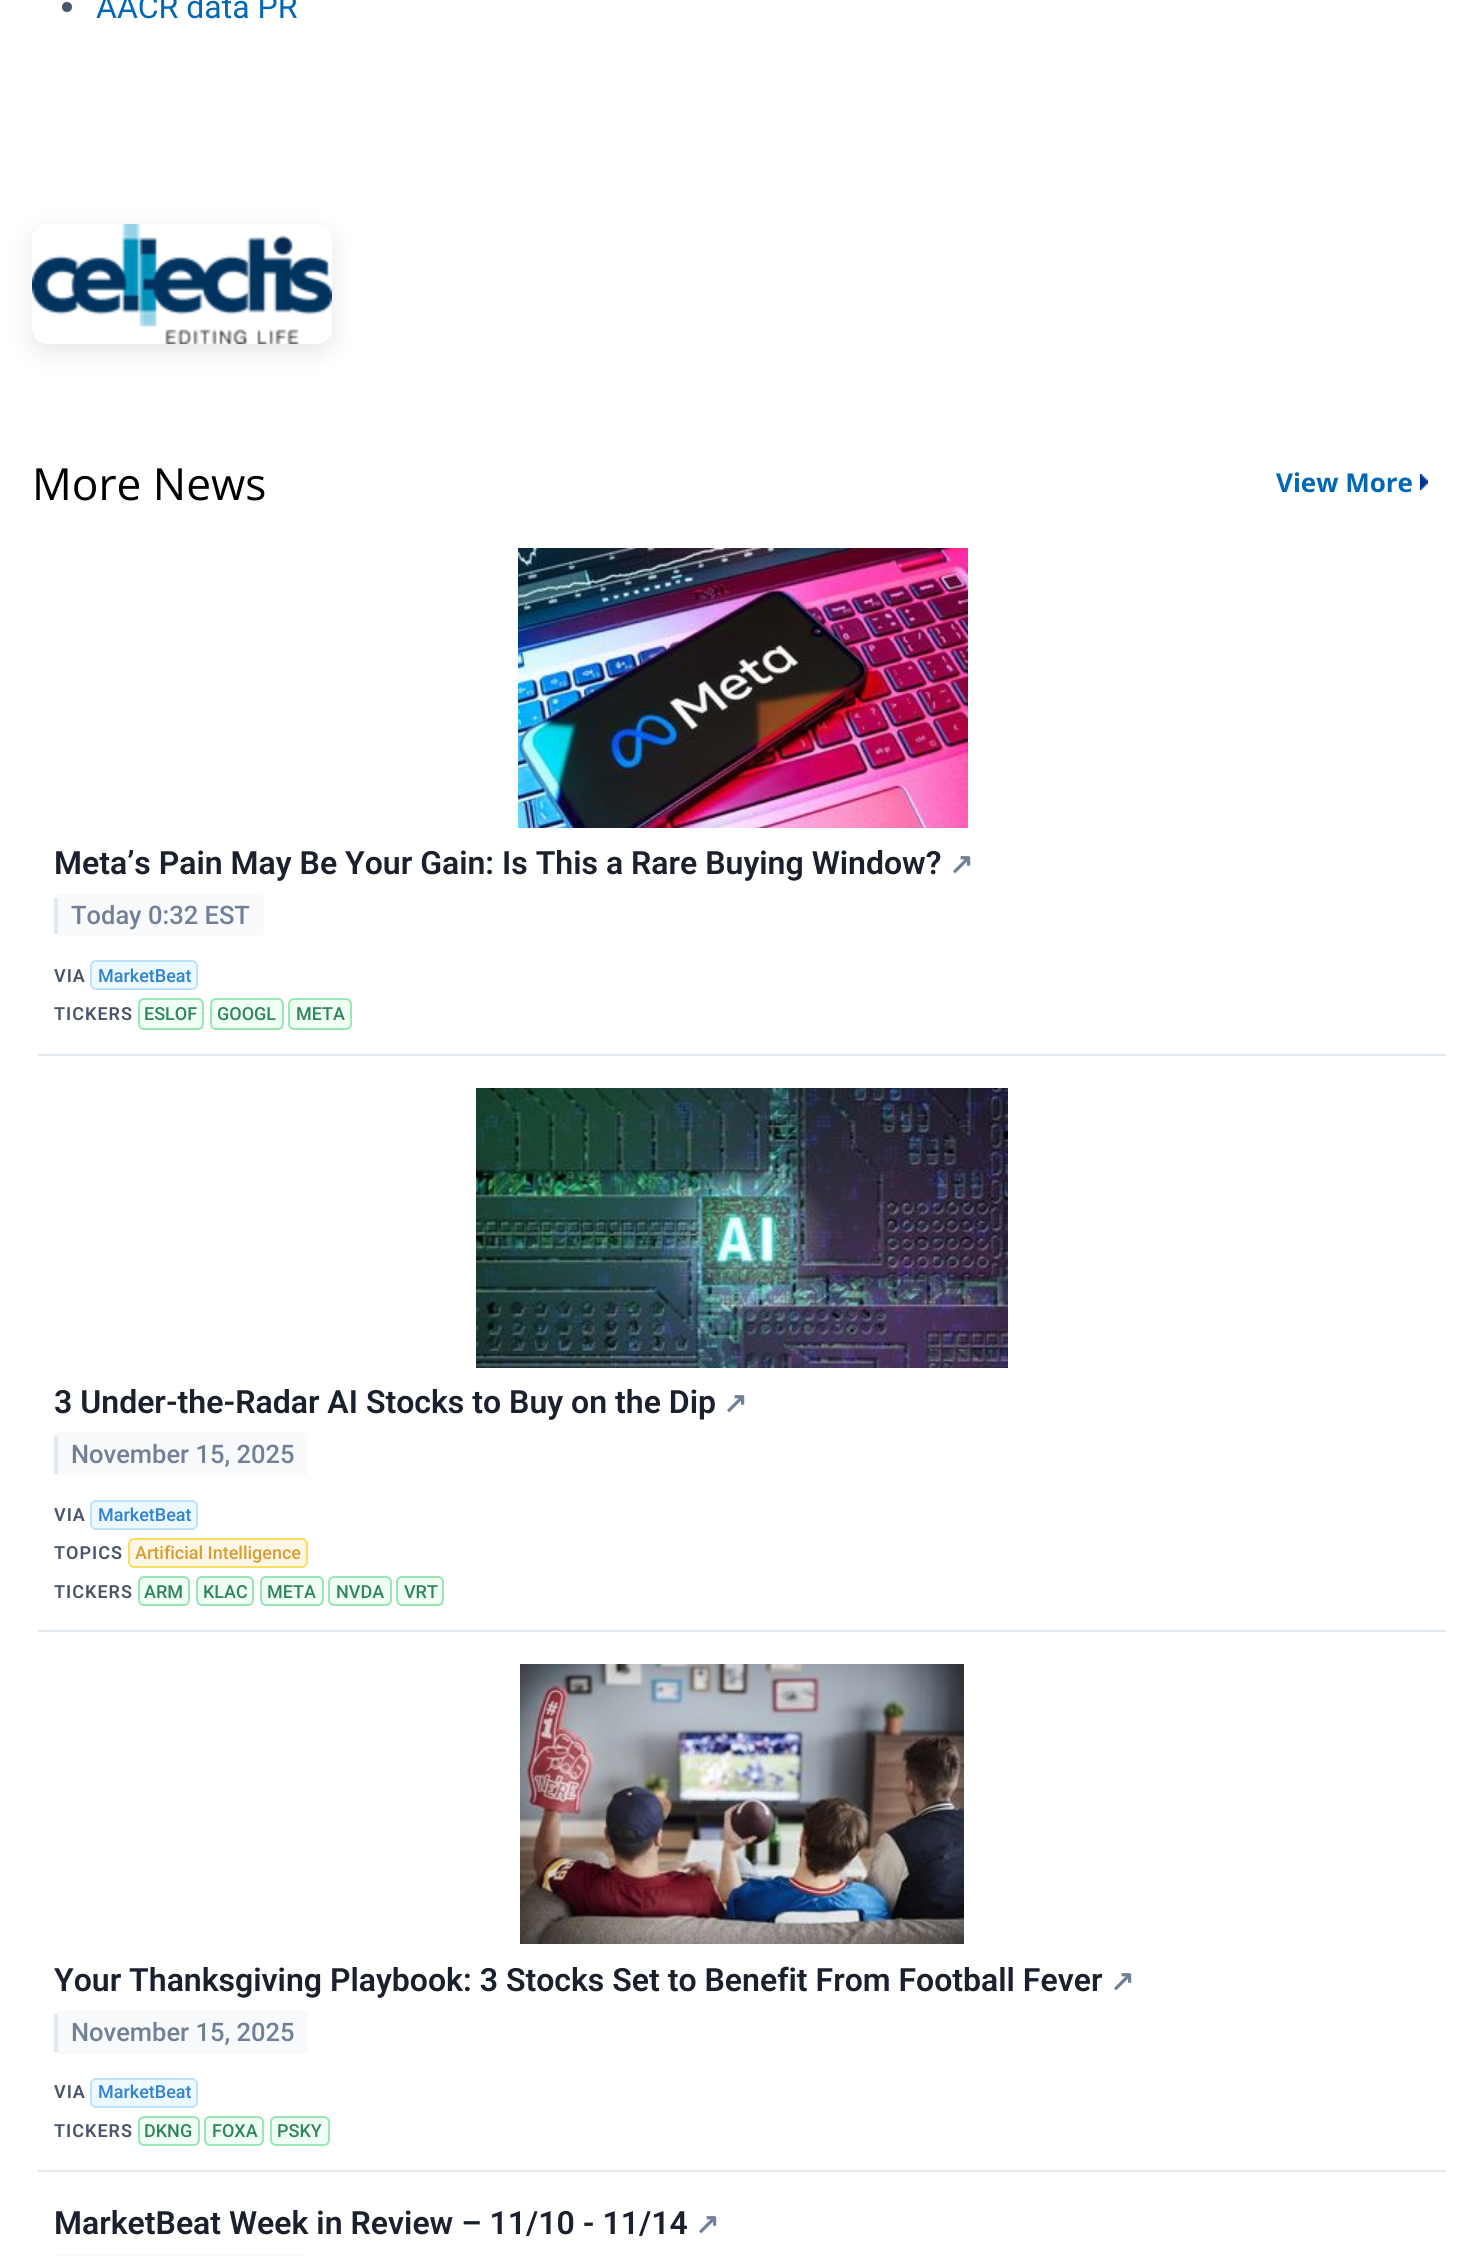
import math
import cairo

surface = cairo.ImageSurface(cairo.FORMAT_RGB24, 1484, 2256)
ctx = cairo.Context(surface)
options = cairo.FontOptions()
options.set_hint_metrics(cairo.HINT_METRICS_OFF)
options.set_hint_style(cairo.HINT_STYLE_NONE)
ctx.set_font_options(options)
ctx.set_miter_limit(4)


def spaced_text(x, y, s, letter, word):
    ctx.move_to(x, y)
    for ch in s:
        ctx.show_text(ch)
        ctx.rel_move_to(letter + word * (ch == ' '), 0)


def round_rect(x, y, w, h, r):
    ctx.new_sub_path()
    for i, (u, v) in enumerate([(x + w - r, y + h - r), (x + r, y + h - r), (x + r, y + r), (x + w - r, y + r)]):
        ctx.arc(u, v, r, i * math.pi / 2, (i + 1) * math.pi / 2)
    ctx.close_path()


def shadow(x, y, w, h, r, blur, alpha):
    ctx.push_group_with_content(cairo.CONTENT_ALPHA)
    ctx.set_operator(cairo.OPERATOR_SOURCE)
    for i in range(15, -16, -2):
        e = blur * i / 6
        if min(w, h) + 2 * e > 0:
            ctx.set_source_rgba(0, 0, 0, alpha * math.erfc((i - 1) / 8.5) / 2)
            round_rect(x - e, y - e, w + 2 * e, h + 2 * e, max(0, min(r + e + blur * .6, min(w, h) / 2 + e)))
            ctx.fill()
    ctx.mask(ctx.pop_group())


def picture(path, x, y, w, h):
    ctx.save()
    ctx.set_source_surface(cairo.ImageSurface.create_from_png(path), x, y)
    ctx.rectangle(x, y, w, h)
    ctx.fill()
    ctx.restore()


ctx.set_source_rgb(1, 1, 1)
ctx.paint()
ctx.set_source_rgb(0.29, 0.333, 0.408)
ctx.arc(67, 7, 5, 0, 2 * math.pi)
ctx.fill()
ctx.select_font_face("Roboto")
ctx.set_font_size(32)
ctx.set_source_rgb(0.016, 0.4, 0.714)
ctx.move_to(96, 18)
ctx.show_text("AACR data PR")
ctx.save()
ctx.set_fill_rule(cairo.FILL_RULE_EVEN_ODD)
ctx.new_path()
ctx.move_to(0, 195)
ctx.line_to(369, 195)
ctx.line_to(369, 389)
ctx.line_to(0, 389)
ctx.close_path()
ctx.move_to(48, 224)
ctx.line_to(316, 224)
ctx.curve_to(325, 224, 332, 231, 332, 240)
ctx.line_to(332, 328)
ctx.curve_to(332, 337, 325, 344, 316, 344)
ctx.line_to(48, 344)
ctx.curve_to(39, 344, 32, 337, 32, 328)
ctx.line_to(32, 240)
ctx.curve_to(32, 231, 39, 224, 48, 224)
ctx.close_path()
ctx.clip()
ctx.set_source_rgb(0, 0, 0)
shadow(32, 232, 300, 120, 16, 12, 0.1)
ctx.restore()
picture("img1.png", 32, 224, 300, 120)
ctx.select_font_face("Open Sans")
ctx.set_font_size(44.25)
ctx.set_source_rgb(0, 0, 0)
ctx.move_to(32, 500)
ctx.show_text("More News")
picture("img2.png", 1420, 474, 8, 16)
ctx.select_font_face("Open Sans", cairo.FONT_SLANT_NORMAL, cairo.FONT_WEIGHT_BOLD)
ctx.set_font_size(26)
ctx.set_source_rgb(0.016, 0.4, 0.714)
ctx.move_to(1276, 492)
ctx.show_text("View More")
ctx.set_source_rgb(0.886, 0.91, 0.941)
ctx.rectangle(38, 1054, 1408, 2)
ctx.fill()
picture("img3.png", 518, 548, 450, 280)
ctx.select_font_face("Roboto SemiBold")
ctx.set_font_size(32)
ctx.set_source_rgb(0.102, 0.125, 0.173)
ctx.move_to(54, 874)
ctx.show_text("Meta’s Pain May Be Your Gain: Is This a Rare Buying Window?")
ctx.select_font_face("DejaVu Sans", cairo.FONT_SLANT_NORMAL, cairo.FONT_WEIGHT_BOLD)
ctx.set_font_size(29)
ctx.set_source_rgb(0.443, 0.502, 0.588)
ctx.move_to(949, 874)
ctx.show_text("↗")
ctx.set_source_rgb(0.969, 0.98, 0.988)
round_rect(54, 894, 210, 42, 6)
ctx.fill()
ctx.set_source_rgb(0.886, 0.91, 0.941)
ctx.rectangle(54, 898, 4, 36)
ctx.fill()
ctx.select_font_face("Roboto Medium")
ctx.set_font_size(25.5)
ctx.set_source_rgb(0.443, 0.502, 0.588)
ctx.move_to(71, 924)
ctx.show_text("Today 0:32 EST")
ctx.select_font_face("Roboto SemiBold")
ctx.set_font_size(18)
ctx.set_source_rgb(0.29, 0.333, 0.408)
spaced_text(54, 982, "VIA", 1, 0)
ctx.set_source_rgb(0.922, 0.973, 1)
round_rect(91, 961, 106, 28, 5)
ctx.fill_preserve()
ctx.set_source_rgb(0.745, 0.89, 0.973)
ctx.stroke()
ctx.select_font_face("Roboto Medium")
ctx.set_source_rgb(0.192, 0.51, 0.808)
ctx.move_to(98, 982)
ctx.show_text("MarketBeat")
ctx.select_font_face("Roboto SemiBold")
ctx.set_source_rgb(0.29, 0.333, 0.408)
spaced_text(54, 1020, "TICKERS", 1, 0)
ctx.set_source_rgb(0.941, 1, 0.957)
round_rect(139, 999, 64, 30, 5)
ctx.fill_preserve()
ctx.set_source_rgb(0.604, 0.902, 0.706)
ctx.stroke()
ctx.select_font_face("Roboto Medium")
ctx.set_source_rgb(0.184, 0.522, 0.353)
ctx.move_to(144, 1020)
ctx.show_text("ESLOF")
ctx.set_source_rgb(0.941, 1, 0.957)
round_rect(211, 999, 72, 30, 5)
ctx.fill_preserve()
ctx.set_source_rgb(0.604, 0.902, 0.706)
ctx.stroke()
ctx.set_source_rgb(0.184, 0.522, 0.353)
ctx.move_to(217, 1020)
ctx.show_text("GOOGL")
ctx.set_source_rgb(0.941, 1, 0.957)
round_rect(289, 999, 62, 30, 5)
ctx.fill_preserve()
ctx.set_source_rgb(0.604, 0.902, 0.706)
ctx.stroke()
ctx.set_source_rgb(0.184, 0.522, 0.353)
ctx.move_to(296, 1020)
ctx.show_text("META")
ctx.set_source_rgb(0.886, 0.91, 0.941)
ctx.rectangle(38, 1630, 1408, 2)
ctx.fill()
picture("img4.png", 476, 1088, 532, 280)
ctx.select_font_face("Roboto SemiBold")
ctx.set_font_size(32)
ctx.set_source_rgb(0.102, 0.125, 0.173)
ctx.move_to(54, 1413)
ctx.show_text("3 Under-the-Radar AI Stocks to Buy on the Dip")
ctx.select_font_face("DejaVu Sans", cairo.FONT_SLANT_NORMAL, cairo.FONT_WEIGHT_BOLD)
ctx.set_font_size(29)
ctx.set_source_rgb(0.443, 0.502, 0.588)
ctx.move_to(723, 1413)
ctx.show_text("↗")
ctx.set_source_rgb(0.969, 0.98, 0.988)
round_rect(54, 1432, 254, 44, 6)
ctx.fill()
ctx.set_source_rgb(0.886, 0.91, 0.941)
ctx.rectangle(54, 1436, 4, 38)
ctx.fill()
ctx.select_font_face("Roboto Medium")
ctx.set_font_size(25.5)
ctx.set_source_rgb(0.443, 0.502, 0.588)
ctx.move_to(71, 1463)
ctx.show_text("November 15, 2025")
ctx.select_font_face("Roboto SemiBold")
ctx.set_font_size(18)
ctx.set_source_rgb(0.29, 0.333, 0.408)
spaced_text(54, 1521, "VIA", 1, 0)
ctx.set_source_rgb(0.922, 0.973, 1)
round_rect(91, 1501, 106, 28, 5)
ctx.fill_preserve()
ctx.set_source_rgb(0.745, 0.89, 0.973)
ctx.stroke()
ctx.select_font_face("Roboto Medium")
ctx.set_source_rgb(0.192, 0.51, 0.808)
ctx.move_to(98, 1521)
ctx.show_text("MarketBeat")
ctx.select_font_face("Roboto SemiBold")
ctx.set_source_rgb(0.29, 0.333, 0.408)
spaced_text(54, 1559, "TOPICS", 1, 0)
ctx.set_source_rgb(0.996, 0.961, 0.906)
round_rect(129, 1539, 178, 28, 5)
ctx.fill_preserve()
ctx.set_source_rgb(0.965, 0.878, 0.369)
ctx.stroke()
ctx.select_font_face("Roboto Medium")
ctx.set_source_rgb(0.839, 0.62, 0.18)
ctx.move_to(135, 1559)
ctx.show_text("Artificial Intelligence")
ctx.select_font_face("Roboto SemiBold")
ctx.set_source_rgb(0.29, 0.333, 0.408)
spaced_text(54, 1598, "TICKERS", 1, 0)
ctx.set_source_rgb(0.941, 1, 0.957)
round_rect(139, 1577, 50, 28, 5)
ctx.fill_preserve()
ctx.set_source_rgb(0.604, 0.902, 0.706)
ctx.stroke()
ctx.select_font_face("Roboto Medium")
ctx.set_source_rgb(0.184, 0.522, 0.353)
ctx.move_to(144, 1598)
ctx.show_text("ARM")
ctx.set_source_rgb(0.941, 1, 0.957)
round_rect(197, 1577, 56, 28, 5)
ctx.fill_preserve()
ctx.set_source_rgb(0.604, 0.902, 0.706)
ctx.stroke()
ctx.set_source_rgb(0.184, 0.522, 0.353)
ctx.move_to(203, 1598)
ctx.show_text("KLAC")
ctx.set_source_rgb(0.941, 1, 0.957)
round_rect(261, 1577, 62, 28, 5)
ctx.fill_preserve()
ctx.set_source_rgb(0.604, 0.902, 0.706)
ctx.stroke()
ctx.set_source_rgb(0.184, 0.522, 0.353)
ctx.move_to(267, 1598)
ctx.show_text("META")
ctx.set_source_rgb(0.941, 1, 0.957)
round_rect(329, 1577, 62, 28, 5)
ctx.fill_preserve()
ctx.set_source_rgb(0.604, 0.902, 0.706)
ctx.stroke()
ctx.set_source_rgb(0.184, 0.522, 0.353)
ctx.move_to(336, 1598)
ctx.show_text("NVDA")
ctx.set_source_rgb(0.941, 1, 0.957)
round_rect(397, 1577, 46, 28, 5)
ctx.fill_preserve()
ctx.set_source_rgb(0.604, 0.902, 0.706)
ctx.stroke()
ctx.set_source_rgb(0.184, 0.522, 0.353)
ctx.move_to(404, 1598)
ctx.show_text("VRT")
ctx.set_source_rgb(0.886, 0.91, 0.941)
ctx.rectangle(38, 2170, 1408, 2)
ctx.fill()
picture("img5.png", 520, 1664, 444, 280)
ctx.select_font_face("Roboto SemiBold")
ctx.set_font_size(32)
ctx.set_source_rgb(0.102, 0.125, 0.173)
ctx.move_to(54, 1991)
ctx.show_text("Your Thanksgiving Playbook: 3 Stocks Set to Benefit From Football Fever")
ctx.select_font_face("DejaVu Sans", cairo.FONT_SLANT_NORMAL, cairo.FONT_WEIGHT_BOLD)
ctx.set_font_size(29)
ctx.set_source_rgb(0.443, 0.502, 0.588)
ctx.move_to(1110, 1991)
ctx.show_text("↗")
ctx.set_source_rgb(0.969, 0.98, 0.988)
round_rect(54, 2010, 254, 44, 6)
ctx.fill()
ctx.set_source_rgb(0.886, 0.91, 0.941)
ctx.rectangle(54, 2014, 4, 38)
ctx.fill()
ctx.select_font_face("Roboto Medium")
ctx.set_font_size(25.5)
ctx.set_source_rgb(0.443, 0.502, 0.588)
ctx.move_to(71, 2041)
ctx.show_text("November 15, 2025")
ctx.select_font_face("Roboto SemiBold")
ctx.set_font_size(18)
ctx.set_source_rgb(0.29, 0.333, 0.408)
spaced_text(54, 2098, "VIA", 1, 0)
ctx.set_source_rgb(0.922, 0.973, 1)
round_rect(91, 2079, 106, 28, 5)
ctx.fill_preserve()
ctx.set_source_rgb(0.745, 0.89, 0.973)
ctx.stroke()
ctx.select_font_face("Roboto Medium")
ctx.set_source_rgb(0.192, 0.51, 0.808)
ctx.move_to(98, 2098)
ctx.show_text("MarketBeat")
ctx.select_font_face("Roboto SemiBold")
ctx.set_source_rgb(0.29, 0.333, 0.408)
spaced_text(54, 2137, "TICKERS", 1, 0)
ctx.set_source_rgb(0.941, 1, 0.957)
round_rect(139, 2117, 60, 28, 5)
ctx.fill_preserve()
ctx.set_source_rgb(0.604, 0.902, 0.706)
ctx.stroke()
ctx.select_font_face("Roboto Medium")
ctx.set_source_rgb(0.184, 0.522, 0.353)
ctx.move_to(144, 2137)
ctx.show_text("DKNG")
ctx.set_source_rgb(0.941, 1, 0.957)
round_rect(205, 2117, 58, 28, 5)
ctx.fill_preserve()
ctx.set_source_rgb(0.604, 0.902, 0.706)
ctx.stroke()
ctx.set_source_rgb(0.184, 0.522, 0.353)
ctx.move_to(212, 2137)
ctx.show_text("FOXA")
ctx.set_source_rgb(0.941, 1, 0.957)
round_rect(271, 2117, 58, 28, 5)
ctx.fill_preserve()
ctx.set_source_rgb(0.604, 0.902, 0.706)
ctx.stroke()
ctx.set_source_rgb(0.184, 0.522, 0.353)
ctx.move_to(277, 2137)
ctx.show_text("PSKY")
ctx.select_font_face("Roboto SemiBold")
ctx.set_font_size(32)
ctx.set_source_rgb(0.102, 0.125, 0.173)
ctx.move_to(54, 2234)
ctx.show_text("MarketBeat Week in Review – 11/10 - 11/14")
ctx.select_font_face("DejaVu Sans", cairo.FONT_SLANT_NORMAL, cairo.FONT_WEIGHT_BOLD)
ctx.set_font_size(29)
ctx.set_source_rgb(0.443, 0.502, 0.588)
ctx.move_to(695, 2234)
ctx.show_text("↗")
ctx.set_source_rgb(0.969, 0.98, 0.988)
round_rect(54, 2254, 254, 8, 6)
ctx.fill()
surface.write_to_png("page.png")
